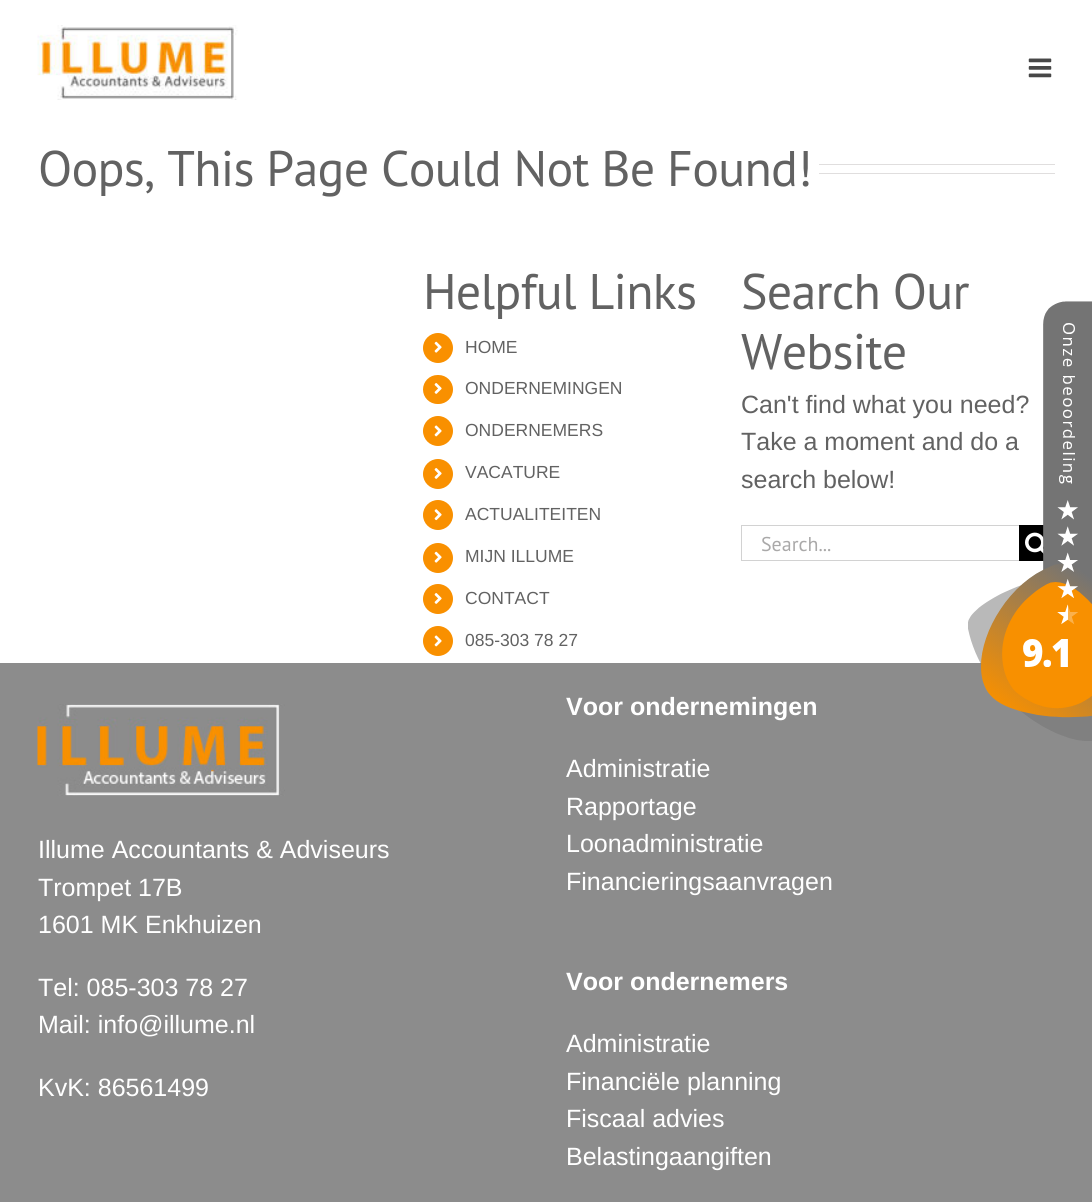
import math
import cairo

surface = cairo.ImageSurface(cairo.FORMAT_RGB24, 1092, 1202)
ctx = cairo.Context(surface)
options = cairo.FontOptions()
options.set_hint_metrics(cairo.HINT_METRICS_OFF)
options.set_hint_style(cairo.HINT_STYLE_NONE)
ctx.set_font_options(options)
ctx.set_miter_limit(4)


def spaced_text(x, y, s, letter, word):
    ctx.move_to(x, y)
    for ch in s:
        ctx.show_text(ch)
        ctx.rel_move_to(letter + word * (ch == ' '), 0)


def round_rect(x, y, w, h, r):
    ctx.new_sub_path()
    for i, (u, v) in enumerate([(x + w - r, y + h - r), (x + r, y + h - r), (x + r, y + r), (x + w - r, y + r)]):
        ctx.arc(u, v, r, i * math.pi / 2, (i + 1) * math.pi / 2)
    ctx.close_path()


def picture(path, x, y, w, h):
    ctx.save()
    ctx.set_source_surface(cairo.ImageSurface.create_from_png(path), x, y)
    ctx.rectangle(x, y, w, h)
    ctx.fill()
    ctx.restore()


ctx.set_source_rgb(1, 1, 1)
ctx.paint()
picture("img1.png", 37, 25, 201, 75)
picture("img2.png", 1028, 58, 24, 20)
ctx.select_font_face("PT Sans")
ctx.set_font_size(50)
ctx.set_source_rgb(0.384, 0.384, 0.384)
spaced_text(38, 186, "Oops, This Page Could Not Be Found!", -0.75, 0)
ctx.set_source_rgb(0.878, 0.871, 0.871)
ctx.rectangle(819, 164, 236, 1)
ctx.fill()
ctx.rectangle(819, 173, 236, 1)
ctx.fill()
ctx.set_source_rgb(0.384, 0.384, 0.384)
spaced_text(423, 309, "Helpful Links", -0.75, 0)
ctx.set_source_rgb(0.973, 0.565, 0)
ctx.new_path()
ctx.arc(438, 348, 15, 0, 2 * math.pi)
ctx.fill()
picture("img3.png", 434, 341, 8, 12)
ctx.select_font_face("Liberation Sans")
ctx.set_font_size(17.5)
ctx.set_source_rgb(0.384, 0.384, 0.384)
ctx.move_to(465, 353)
ctx.show_text("HOME")
ctx.set_source_rgb(0.973, 0.565, 0)
round_rect(423, 375, 30, 29, 14.5)
ctx.fill()
picture("img4.png", 434, 383, 8, 11)
ctx.set_source_rgb(0.384, 0.384, 0.384)
ctx.move_to(465, 394)
ctx.show_text("ONDERNEMINGEN")
ctx.set_source_rgb(0.973, 0.565, 0)
ctx.new_path()
ctx.arc(438, 431, 15, 0, 2 * math.pi)
ctx.fill()
picture("img5.png", 434, 425, 8, 12)
ctx.set_source_rgb(0.384, 0.384, 0.384)
ctx.move_to(465, 436)
ctx.show_text("ONDERNEMERS")
ctx.set_source_rgb(0.973, 0.565, 0)
ctx.new_path()
ctx.arc(438, 474, 15, 0, 2 * math.pi)
ctx.fill()
picture("img4.png", 434, 468, 8, 11)
ctx.set_source_rgb(0.384, 0.384, 0.384)
ctx.move_to(465, 478)
ctx.show_text("VACATURE")
ctx.set_source_rgb(0.973, 0.565, 0)
ctx.new_path()
ctx.arc(438, 515, 15, 0, 2 * math.pi)
ctx.fill()
picture("img6.png", 434, 509, 8, 12)
ctx.set_source_rgb(0.384, 0.384, 0.384)
ctx.move_to(465, 520)
ctx.show_text("ACTUALITEITEN")
ctx.set_source_rgb(0.973, 0.565, 0)
ctx.new_path()
ctx.arc(438, 558, 15, 0, 2 * math.pi)
ctx.fill()
picture("img3.png", 434, 551, 8, 12)
ctx.set_source_rgb(0.384, 0.384, 0.384)
ctx.move_to(465, 562)
ctx.show_text("MIJN ILLUME")
ctx.set_source_rgb(0.973, 0.565, 0)
ctx.new_path()
ctx.arc(438, 599, 15, 0, 2 * math.pi)
ctx.fill()
picture("img4.png", 434, 593, 8, 11)
ctx.set_source_rgb(0.384, 0.384, 0.384)
ctx.move_to(465, 604)
ctx.show_text("CONTACT")
ctx.set_source_rgb(0.973, 0.565, 0)
ctx.new_path()
ctx.arc(438, 641, 15, 0, 2 * math.pi)
ctx.fill()
picture("img5.png", 434, 635, 8, 12)
ctx.set_source_rgb(0.384, 0.384, 0.384)
ctx.move_to(465, 646)
ctx.show_text("085-303 78 27")
ctx.select_font_face("PT Sans")
ctx.set_font_size(50)
spaced_text(741, 309, "Search Our", -0.75, 0)
spaced_text(741, 369, "Website", -0.75, 0)
ctx.select_font_face("Liberation Sans")
ctx.set_font_size(25)
ctx.move_to(741, 413)
ctx.show_text("Can't find what you need?")
ctx.move_to(741, 450)
ctx.show_text("Take a moment and do a")
ctx.move_to(741, 488)
ctx.show_text("search below!")
ctx.set_source_rgb(0.824, 0.824, 0.824)
ctx.rectangle(741, 525, 278, 1)
ctx.fill()
ctx.rectangle(741, 560, 278, 1)
ctx.fill()
ctx.rectangle(741, 525, 1, 36)
ctx.fill()
ctx.select_font_face("PT Sans")
ctx.set_font_size(20)
ctx.set_source_rgb(0.667, 0.663, 0.663)
ctx.move_to(761, 551)
ctx.show_text("Search...")
ctx.set_source_rgb(0, 0, 0)
ctx.rectangle(1019, 525, 25, 36)
ctx.fill()
picture("img7.png", 1025, 532, 19, 22)
ctx.set_source_rgb(0.549, 0.549, 0.549)
ctx.rectangle(0, 663, 1092, 539)
ctx.fill()
picture("img8.png", 968, 301, 124, 440)
picture("img9.png", 37, 704, 248, 92)
ctx.select_font_face("Liberation Sans")
ctx.set_font_size(25)
ctx.set_source_rgb(1, 1, 1)
ctx.move_to(38, 858)
ctx.show_text("Illume Accountants & Adviseurs")
ctx.move_to(38, 896)
ctx.show_text("Trompet 17B")
ctx.move_to(38, 933)
ctx.show_text("1601 MK Enkhuizen")
ctx.move_to(38, 996)
ctx.show_text("Tel: 085-303 78 27")
ctx.move_to(38, 1033)
ctx.show_text("Mail: info@illume.nl")
ctx.move_to(38, 1096)
ctx.show_text("KvK: 86561499")
ctx.select_font_face("Liberation Sans", cairo.FONT_SLANT_NORMAL, cairo.FONT_WEIGHT_BOLD)
ctx.move_to(566, 715)
ctx.show_text("Voor ondernemingen")
ctx.select_font_face("Liberation Sans")
ctx.move_to(566, 777)
ctx.show_text("Administratie")
ctx.move_to(566, 815)
ctx.show_text("Rapportage")
ctx.move_to(566, 852)
ctx.show_text("Loonadministratie")
ctx.move_to(566, 890)
ctx.show_text("Financieringsaanvragen")
ctx.select_font_face("Liberation Sans", cairo.FONT_SLANT_NORMAL, cairo.FONT_WEIGHT_BOLD)
ctx.move_to(566, 990)
ctx.show_text("Voor ondernemers")
ctx.select_font_face("Liberation Sans")
ctx.move_to(566, 1052)
ctx.show_text("Administratie")
ctx.move_to(566, 1090)
ctx.show_text("Financiële planning")
ctx.move_to(566, 1127)
ctx.show_text("Fiscaal advies")
ctx.move_to(566, 1165)
ctx.show_text("Belastingaangiften")
surface.write_to_png("page.png")
